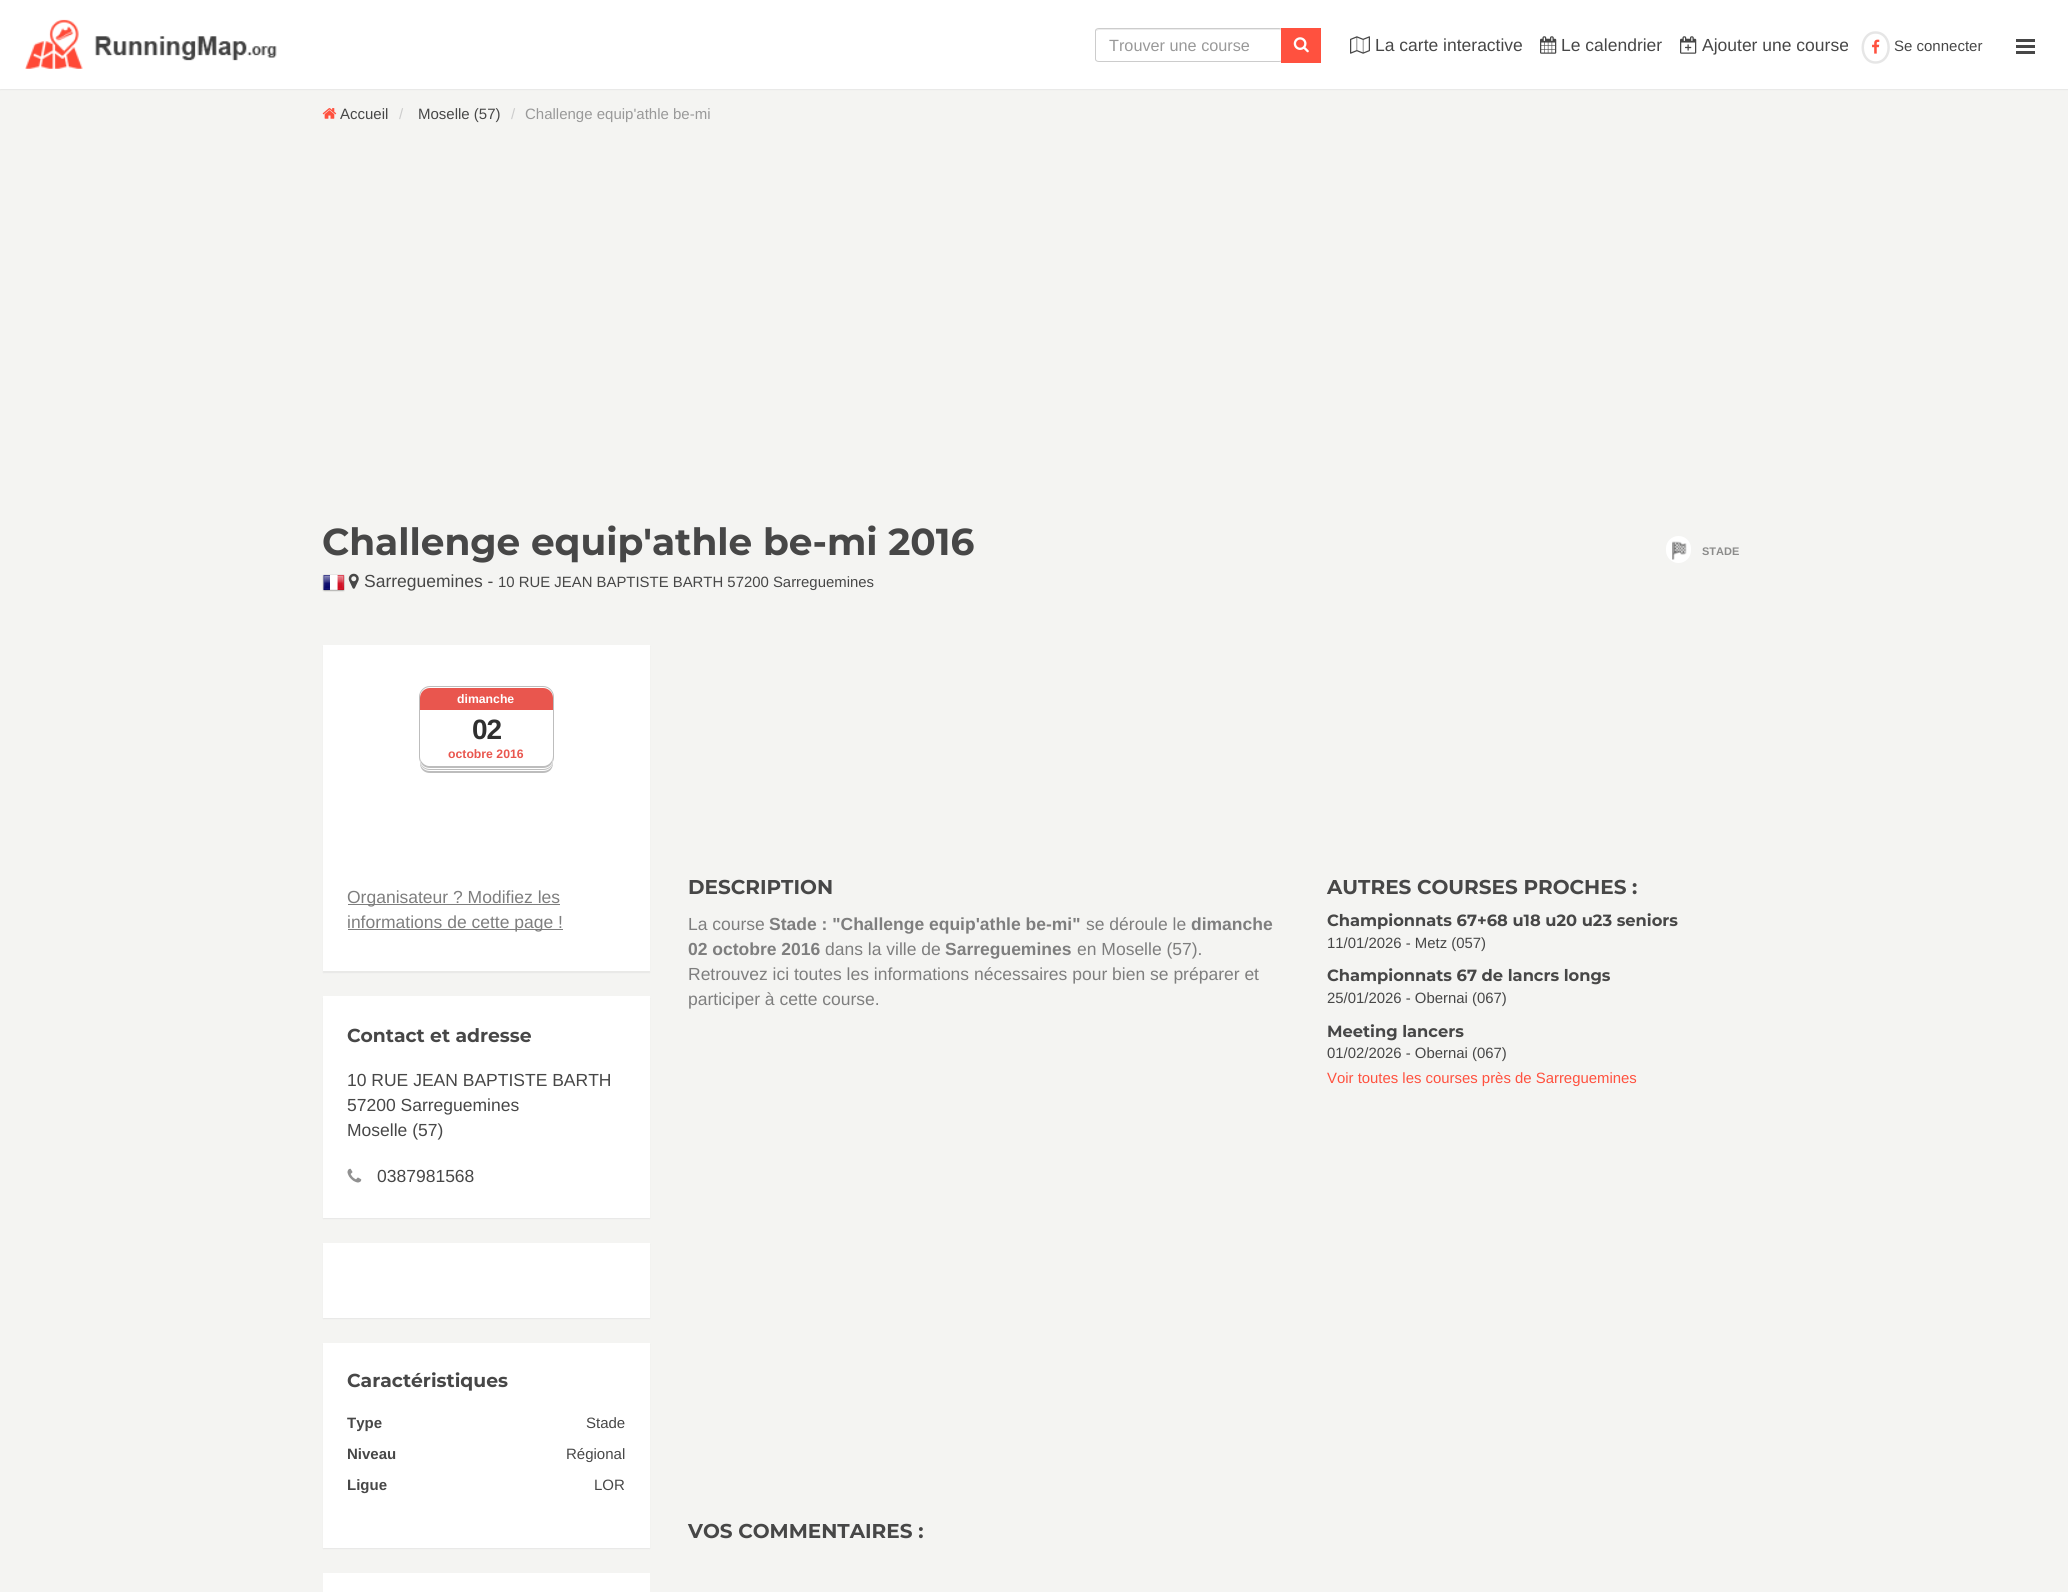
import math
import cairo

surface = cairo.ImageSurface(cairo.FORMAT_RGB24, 2068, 1592)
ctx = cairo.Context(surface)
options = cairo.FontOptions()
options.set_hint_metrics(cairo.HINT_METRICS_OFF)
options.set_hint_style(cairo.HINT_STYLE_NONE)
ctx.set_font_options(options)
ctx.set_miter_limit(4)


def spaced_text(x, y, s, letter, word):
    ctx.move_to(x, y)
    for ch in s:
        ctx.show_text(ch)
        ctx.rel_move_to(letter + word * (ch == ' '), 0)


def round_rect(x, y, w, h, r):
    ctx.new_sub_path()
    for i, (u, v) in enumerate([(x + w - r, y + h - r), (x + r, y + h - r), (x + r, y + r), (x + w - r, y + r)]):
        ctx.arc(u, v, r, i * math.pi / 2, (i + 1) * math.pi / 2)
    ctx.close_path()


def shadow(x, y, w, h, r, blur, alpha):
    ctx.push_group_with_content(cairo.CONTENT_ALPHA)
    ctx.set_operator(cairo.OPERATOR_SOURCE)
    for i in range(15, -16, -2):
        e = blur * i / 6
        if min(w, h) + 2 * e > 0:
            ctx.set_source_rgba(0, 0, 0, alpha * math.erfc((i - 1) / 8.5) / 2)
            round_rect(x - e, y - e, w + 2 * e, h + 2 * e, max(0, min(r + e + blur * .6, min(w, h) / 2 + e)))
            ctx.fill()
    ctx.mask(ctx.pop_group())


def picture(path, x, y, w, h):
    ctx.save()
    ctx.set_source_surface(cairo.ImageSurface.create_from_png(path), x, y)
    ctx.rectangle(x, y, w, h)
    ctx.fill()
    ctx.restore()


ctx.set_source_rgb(0.957, 0.957, 0.949)
ctx.paint()
ctx.set_source_rgb(0, 0, 0)
shadow(0, 1, 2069, 89, 0, 0.5, 0.05)
ctx.set_source_rgb(1, 1, 1)
ctx.rectangle(0, 0, 2068, 89)
ctx.fill()
picture("img1.png", 25, 19, 252, 50)
ctx.set_source_rgb(0.925, 0.925, 0.925)
ctx.new_path()
ctx.move_to(1099, 30)
ctx.line_to(1279, 30)
ctx.curve_to(1281, 30, 1282, 31, 1282, 32)
ctx.line_to(1282, 60)
ctx.line_to(1282, 59)
ctx.line_to(1282, 31)
ctx.curve_to(1282, 30, 1281, 29, 1279, 29)
ctx.line_to(1099, 29)
ctx.curve_to(1097, 29, 1096, 30, 1096, 31)
ctx.curve_to(1097, 31, 1098, 30, 1099, 30)
ctx.close_path()
ctx.fill()
ctx.set_source_rgb(0.8, 0.8, 0.8)
ctx.set_fill_rule(cairo.FILL_RULE_EVEN_ODD)
ctx.new_path()
ctx.move_to(1099, 28)
ctx.line_to(1279, 28)
ctx.curve_to(1281, 28, 1282, 29, 1282, 31)
ctx.line_to(1282, 59)
ctx.curve_to(1282, 61, 1281, 62, 1279, 62)
ctx.line_to(1099, 62)
ctx.curve_to(1097, 62, 1095, 61, 1095, 59)
ctx.line_to(1095, 31)
ctx.curve_to(1095, 29, 1097, 28, 1099, 28)
ctx.close_path()
ctx.move_to(1099, 29)
ctx.line_to(1279, 29)
ctx.curve_to(1281, 29, 1282, 30, 1282, 31)
ctx.line_to(1282, 59)
ctx.curve_to(1282, 60, 1281, 61, 1279, 61)
ctx.line_to(1099, 61)
ctx.curve_to(1097, 61, 1096, 60, 1096, 59)
ctx.line_to(1096, 31)
ctx.curve_to(1096, 30, 1097, 29, 1099, 29)
ctx.close_path()
ctx.fill()
ctx.select_font_face("Liberation Sans")
ctx.set_font_size(16.25)
ctx.set_source_rgb(0.6, 0.6, 0.6)
ctx.move_to(1109, 51)
ctx.show_text("Trouver une course")
ctx.set_source_rgb(1, 0.318, 0.247)
ctx.rectangle(1281, 28, 40, 35)
ctx.fill()
picture("img2.png", 1293, 37, 16, 16)
picture("img3.png", 1350, 36, 20, 18)
ctx.set_font_size(17.5)
ctx.set_source_rgb(0.278, 0.278, 0.278)
ctx.move_to(1375, 51)
ctx.show_text("La carte interactive")
picture("img4.png", 1540, 36, 17, 18)
ctx.move_to(1561, 51)
ctx.show_text("Le calendrier")
picture("img5.png", 1680, 36, 17, 18)
ctx.move_to(1702, 51)
ctx.show_text("Ajouter une course")
ctx.new_path()
ctx.move_to(1875.5, 32.5)
ctx.curve_to(1893, 32.5, 1893, 62.5, 1875.5, 62.5)
ctx.curve_to(1858.5, 62.5, 1858.5, 32.5, 1875.5, 32.5)
ctx.close_path()
ctx.set_source_rgb(0.902, 0.902, 0.902)
ctx.set_line_width(2.5)
ctx.stroke()
picture("img6.png", 1872, 39, 8, 15)
ctx.set_font_size(15)
ctx.set_source_rgb(0.278, 0.278, 0.278)
ctx.move_to(1894, 51)
ctx.show_text("Se connecter")
ctx.rectangle(2016, 39, 19, 3)
ctx.fill()
ctx.rectangle(2016, 45, 19, 3)
ctx.fill()
ctx.rectangle(2016, 51, 19, 3)
ctx.fill()
picture("img7.png", 322, 108, 15, 11)
ctx.move_to(340, 119)
ctx.show_text("Accueil")
ctx.set_source_rgb(0.8, 0.8, 0.8)
ctx.move_to(399, 119)
ctx.show_text("/")
ctx.set_source_rgb(0.278, 0.278, 0.278)
ctx.move_to(418, 119)
ctx.show_text("Moselle (57)")
ctx.set_source_rgb(0.8, 0.8, 0.8)
ctx.move_to(511, 119)
ctx.show_text("/")
ctx.set_source_rgb(0.6, 0.6, 0.6)
ctx.move_to(525, 119)
ctx.show_text("Challenge equip'athle be-mi")
ctx.select_font_face("Montserrat", cairo.FONT_SLANT_NORMAL, cairo.FONT_WEIGHT_BOLD)
ctx.set_font_size(37.5)
ctx.set_source_rgb(0.278, 0.278, 0.278)
ctx.move_to(322, 555)
ctx.show_text("Challenge equip'athle be-mi 2016")
picture("img8.png", 322, 574, 23, 18)
picture("img9.png", 348, 573, 11, 16)
ctx.select_font_face("Liberation Sans")
ctx.set_font_size(17.5)
ctx.move_to(364, 587)
ctx.show_text("Sarreguemines -")
ctx.set_font_size(14.9)
ctx.move_to(498, 587)
ctx.show_text("10 RUE JEAN BAPTISTE BARTH 57200 Sarreguemines")
ctx.set_source_rgb(1, 1, 1)
round_rect(1666, 536, 25, 27, 12.5)
ctx.fill()
picture("img10.png", 1672, 541, 15, 19)
ctx.select_font_face("Liberation Sans", cairo.FONT_SLANT_NORMAL, cairo.FONT_WEIGHT_BOLD)
ctx.set_font_size(11)
ctx.set_source_rgb(0.549, 0.549, 0.545)
ctx.move_to(1702, 555)
ctx.show_text("STADE")
ctx.set_source_rgb(0, 0, 0)
shadow(323, 646, 327, 327, 0, 0.5, 0.05)
ctx.set_source_rgb(1, 1, 1)
ctx.rectangle(323, 645, 327, 326)
ctx.fill()
round_rect(419.5, 686.5, 134, 81, 10.5)
ctx.set_source_rgb(0.741, 0.741, 0.741)
ctx.set_line_width(1)
ctx.stroke()
ctx.set_fill_rule(cairo.FILL_RULE_WINDING)
ctx.new_path()
ctx.move_to(420, 756)
ctx.line_to(420, 763)
ctx.curve_to(420, 769, 424, 773, 430, 773)
ctx.line_to(543, 773)
ctx.curve_to(549, 773, 553, 769, 553, 763)
ctx.line_to(553, 704)
ctx.line_to(552, 701)
ctx.line_to(552, 756)
ctx.curve_to(552, 762, 548, 766, 542, 766)
ctx.line_to(430, 766)
ctx.curve_to(425, 766, 420, 762, 420, 756)
ctx.close_path()
ctx.fill()
ctx.set_source_rgb(1, 1, 1)
ctx.new_path()
ctx.move_to(420, 756)
ctx.line_to(420, 761)
ctx.curve_to(420, 767, 424, 771, 430, 771)
ctx.line_to(543, 771)
ctx.curve_to(549, 771, 553, 767, 553, 761)
ctx.line_to(553, 703)
ctx.line_to(552, 700)
ctx.line_to(552, 756)
ctx.curve_to(552, 762, 548, 766, 542, 766)
ctx.line_to(430, 766)
ctx.curve_to(425, 766, 420, 762, 420, 756)
ctx.close_path()
ctx.fill()
ctx.set_source_rgb(0.741, 0.741, 0.741)
ctx.new_path()
ctx.move_to(420, 756)
ctx.line_to(420, 760)
ctx.curve_to(420, 766, 424, 770, 430, 770)
ctx.line_to(543, 770)
ctx.curve_to(549, 770, 553, 766, 553, 760)
ctx.line_to(553, 701)
ctx.line_to(552, 698)
ctx.line_to(552, 756)
ctx.curve_to(552, 762, 548, 766, 542, 766)
ctx.line_to(430, 766)
ctx.curve_to(425, 766, 420, 762, 420, 756)
ctx.close_path()
ctx.fill()
ctx.set_source_rgb(1, 1, 1)
ctx.new_path()
ctx.move_to(420, 756)
ctx.line_to(420, 759)
ctx.curve_to(420, 765, 424, 769, 430, 769)
ctx.line_to(543, 769)
ctx.curve_to(549, 769, 553, 765, 553, 759)
ctx.line_to(553, 700)
ctx.line_to(552, 697)
ctx.line_to(552, 756)
ctx.curve_to(552, 762, 548, 766, 542, 766)
ctx.line_to(430, 766)
ctx.curve_to(425, 766, 420, 762, 420, 756)
ctx.close_path()
ctx.fill()
ctx.set_source_rgb(0.741, 0.741, 0.741)
ctx.new_path()
ctx.move_to(420, 756)
ctx.line_to(420, 758)
ctx.curve_to(420, 764, 424, 768, 430, 768)
ctx.line_to(543, 768)
ctx.curve_to(549, 768, 553, 764, 553, 758)
ctx.line_to(553, 699)
ctx.curve_to(553, 697, 553, 696, 552, 694)
ctx.line_to(552, 698)
ctx.line_to(552, 756)
ctx.curve_to(552, 762, 548, 766, 542, 766)
ctx.line_to(430, 766)
ctx.curve_to(425, 766, 420, 762, 420, 756)
ctx.close_path()
ctx.fill()
ctx.set_source_rgb(1, 1, 1)
round_rect(420, 688, 133, 78, 10)
ctx.fill()
ctx.set_source_rgb(0.914, 0.337, 0.306)
ctx.new_path()
ctx.move_to(430, 688)
ctx.line_to(543, 688)
ctx.curve_to(548.5, 688, 553, 692.5, 553, 698)
ctx.line_to(553, 710)
ctx.line_to(420, 710)
ctx.line_to(420, 698)
ctx.curve_to(420, 692.5, 424.5, 688, 430, 688)
ctx.close_path()
ctx.fill()
ctx.set_font_size(12.25)
ctx.set_source_rgb(1, 1, 1)
ctx.move_to(457, 703)
ctx.show_text("dimanche")
ctx.set_font_size(28)
ctx.set_source_rgb(0.184, 0.184, 0.184)
spaced_text(472, 739, "02", -1, 0)
ctx.set_font_size(12.25)
ctx.set_source_rgb(0.914, 0.337, 0.306)
ctx.move_to(448, 758)
ctx.show_text("octobre 2016")
ctx.set_source_rgb(0.494, 0.494, 0.494)
ctx.rectangle(348, 904, 212, 1)
ctx.fill()
ctx.select_font_face("Liberation Sans")
ctx.set_font_size(17.5)
ctx.move_to(347, 903)
ctx.show_text("Organisateur ? Modifiez les")
ctx.rectangle(348, 929, 215, 1)
ctx.fill()
ctx.move_to(347, 928)
ctx.show_text("informations de cette page !")
ctx.set_source_rgb(0, 0, 0)
shadow(323, 998, 327, 221, 0, 0.5, 0.05)
ctx.set_source_rgb(1, 1, 1)
ctx.rectangle(323, 996, 327, 222)
ctx.fill()
ctx.select_font_face("Montserrat", cairo.FONT_SLANT_NORMAL, cairo.FONT_WEIGHT_BOLD)
ctx.set_font_size(18.75)
ctx.set_source_rgb(0.278, 0.278, 0.278)
ctx.move_to(347, 1042)
ctx.show_text("Contact et adresse")
ctx.select_font_face("Liberation Sans")
ctx.set_font_size(17.5)
ctx.move_to(347, 1086)
ctx.show_text("10 RUE JEAN BAPTISTE BARTH")
ctx.move_to(347, 1111)
ctx.show_text("57200 Sarreguemines")
ctx.move_to(347, 1136)
ctx.show_text("Moselle (57)")
picture("img11.png", 347, 1168, 15, 15)
ctx.move_to(377, 1182)
ctx.show_text("0387981568")
ctx.set_source_rgb(0, 0, 0)
shadow(323, 1244, 327, 75, 0, 0.5, 0.05)
ctx.set_source_rgb(1, 1, 1)
ctx.rectangle(323, 1243, 327, 75)
ctx.fill()
ctx.set_source_rgb(0, 0, 0)
shadow(323, 1344, 327, 205, 0, 0.5, 0.05)
ctx.set_source_rgb(1, 1, 1)
ctx.rectangle(323, 1343, 327, 205)
ctx.fill()
ctx.select_font_face("Montserrat", cairo.FONT_SLANT_NORMAL, cairo.FONT_WEIGHT_BOLD)
ctx.set_font_size(18.75)
ctx.set_source_rgb(0.278, 0.278, 0.278)
ctx.move_to(347, 1387)
ctx.show_text("Caractéristiques")
ctx.select_font_face("Liberation Sans", cairo.FONT_SLANT_NORMAL, cairo.FONT_WEIGHT_BOLD)
ctx.set_font_size(15)
ctx.move_to(347, 1428)
ctx.show_text("Type")
ctx.select_font_face("Liberation Sans")
ctx.move_to(586, 1428)
ctx.show_text("Stade")
ctx.select_font_face("Liberation Sans", cairo.FONT_SLANT_NORMAL, cairo.FONT_WEIGHT_BOLD)
ctx.move_to(347, 1459)
ctx.show_text("Niveau")
ctx.select_font_face("Liberation Sans")
ctx.move_to(566, 1459)
ctx.show_text("Régional")
ctx.select_font_face("Liberation Sans", cairo.FONT_SLANT_NORMAL, cairo.FONT_WEIGHT_BOLD)
ctx.move_to(347, 1490)
ctx.show_text("Ligue")
ctx.select_font_face("Liberation Sans")
ctx.move_to(594, 1490)
ctx.show_text("LOR")
ctx.set_source_rgb(1, 1, 1)
ctx.rectangle(323, 1573, 327, 19)
ctx.fill()
ctx.select_font_face("Montserrat", cairo.FONT_SLANT_NORMAL, cairo.FONT_WEIGHT_BOLD)
ctx.set_font_size(20)
ctx.set_source_rgb(0.278, 0.278, 0.278)
ctx.move_to(688, 894)
ctx.show_text("DESCRIPTION")
ctx.select_font_face("Liberation Sans")
ctx.set_font_size(17.5)
ctx.set_source_rgb(0.494, 0.494, 0.494)
ctx.move_to(688, 930)
ctx.show_text("La course")
ctx.select_font_face("Liberation Sans", cairo.FONT_SLANT_NORMAL, cairo.FONT_WEIGHT_BOLD)
ctx.move_to(769, 930)
ctx.show_text("Stade : \"Challenge equip'athle be-mi\"")
ctx.select_font_face("Liberation Sans")
ctx.move_to(1086, 930)
ctx.show_text("se déroule le")
ctx.select_font_face("Liberation Sans", cairo.FONT_SLANT_NORMAL, cairo.FONT_WEIGHT_BOLD)
ctx.move_to(1191, 930)
ctx.show_text("dimanche")
ctx.move_to(688, 955)
ctx.show_text("02 octobre 2016")
ctx.select_font_face("Liberation Sans")
ctx.move_to(825, 955)
ctx.show_text("dans la ville de")
ctx.select_font_face("Liberation Sans", cairo.FONT_SLANT_NORMAL, cairo.FONT_WEIGHT_BOLD)
ctx.move_to(945, 955)
ctx.show_text("Sarreguemines")
ctx.select_font_face("Liberation Sans")
ctx.move_to(1077, 955)
ctx.show_text("en Moselle (57).")
ctx.move_to(688, 980)
ctx.show_text("Retrouvez ici toutes les informations nécessaires pour bien se préparer et")
ctx.move_to(688, 1005)
ctx.show_text("participer à cette course.")
ctx.select_font_face("Montserrat", cairo.FONT_SLANT_NORMAL, cairo.FONT_WEIGHT_BOLD)
ctx.set_font_size(20)
ctx.set_source_rgb(0.278, 0.278, 0.278)
ctx.move_to(1327, 894)
ctx.show_text("AUTRES COURSES PROCHES :")
ctx.set_font_size(16.25)
ctx.move_to(1327, 926)
ctx.show_text("Championnats 67+68 u18 u20 u23 seniors")
ctx.select_font_face("Liberation Sans")
ctx.set_font_size(14.9)
ctx.move_to(1327, 948)
ctx.show_text("11/01/2026 - Metz (057)")
ctx.select_font_face("Montserrat", cairo.FONT_SLANT_NORMAL, cairo.FONT_WEIGHT_BOLD)
ctx.set_font_size(16.25)
ctx.move_to(1327, 981)
ctx.show_text("Championnats 67 de lancrs longs")
ctx.select_font_face("Liberation Sans")
ctx.set_font_size(14.9)
ctx.move_to(1327, 1003)
ctx.show_text("25/01/2026 - Obernai (067)")
ctx.select_font_face("Montserrat", cairo.FONT_SLANT_NORMAL, cairo.FONT_WEIGHT_BOLD)
ctx.set_font_size(16.25)
ctx.move_to(1327, 1037)
ctx.show_text("Meeting lancers")
ctx.select_font_face("Liberation Sans")
ctx.set_font_size(14.9)
ctx.move_to(1327, 1058)
ctx.show_text("01/02/2026 - Obernai (067)")
ctx.set_source_rgb(1, 0.318, 0.247)
ctx.move_to(1327, 1083)
ctx.show_text("Voir toutes les courses près de Sarreguemines")
ctx.select_font_face("Montserrat", cairo.FONT_SLANT_NORMAL, cairo.FONT_WEIGHT_BOLD)
ctx.set_font_size(20)
ctx.set_source_rgb(0.278, 0.278, 0.278)
ctx.move_to(688, 1538)
ctx.show_text("VOS COMMENTAIRES :")
surface.write_to_png("page.png")
